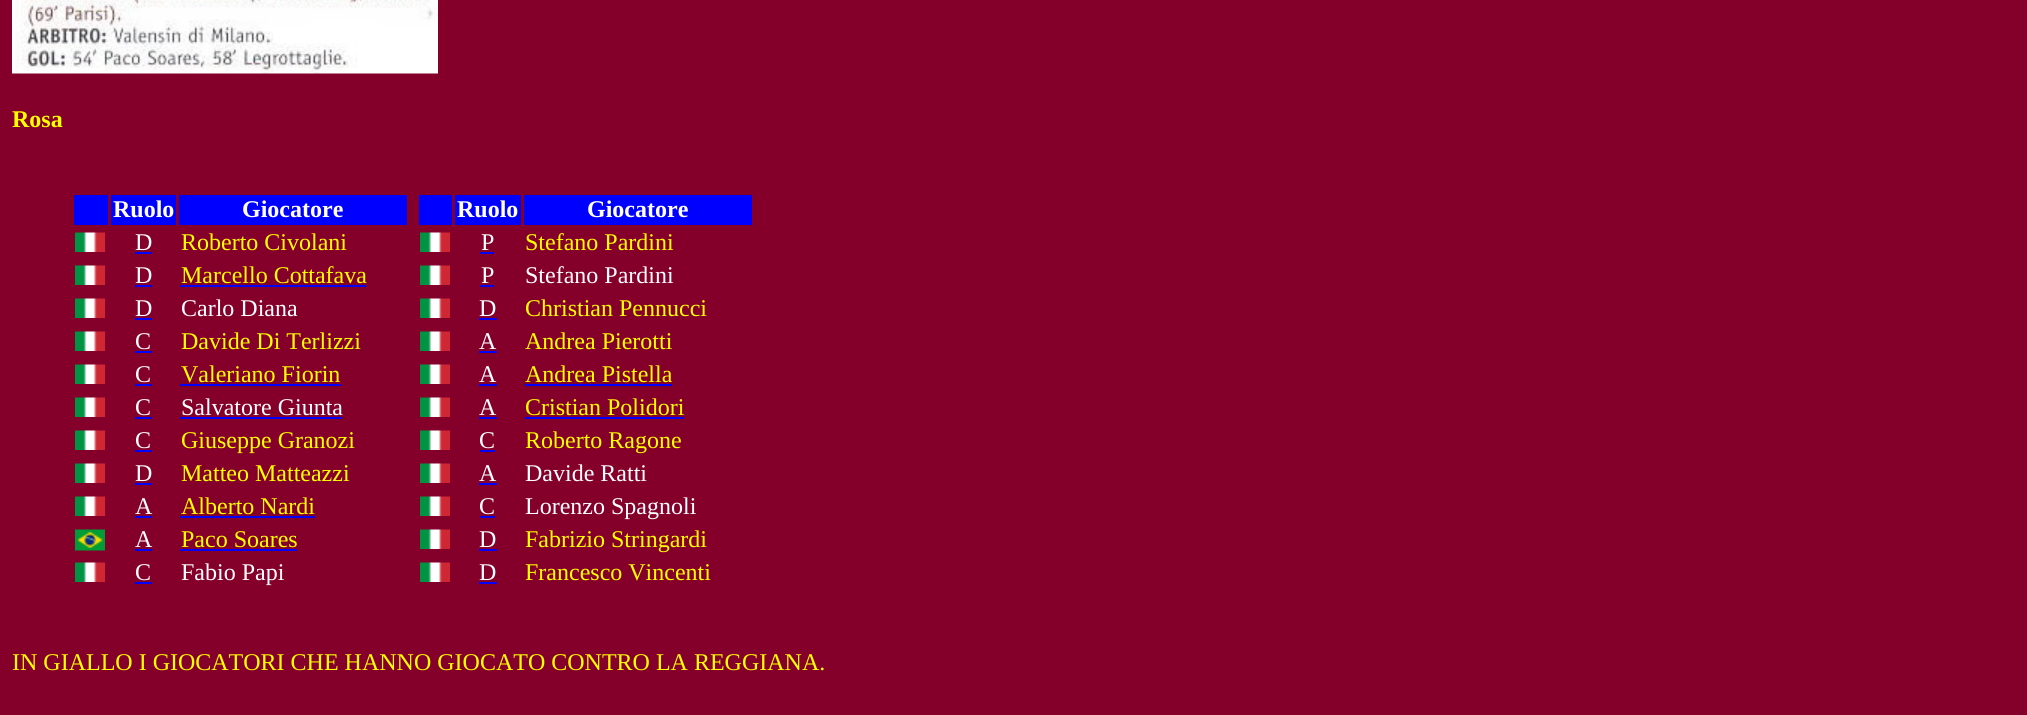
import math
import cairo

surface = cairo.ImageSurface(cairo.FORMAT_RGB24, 2027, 715)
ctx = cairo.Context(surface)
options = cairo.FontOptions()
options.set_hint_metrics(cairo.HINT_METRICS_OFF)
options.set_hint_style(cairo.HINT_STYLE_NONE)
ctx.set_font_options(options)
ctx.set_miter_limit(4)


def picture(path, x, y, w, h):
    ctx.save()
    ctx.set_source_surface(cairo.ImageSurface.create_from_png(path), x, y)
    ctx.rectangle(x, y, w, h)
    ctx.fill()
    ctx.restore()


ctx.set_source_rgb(0.518, 0, 0.169)
ctx.paint()
picture("img1.png", 12, 0, 426, 74)
ctx.select_font_face("Liberation Serif", cairo.FONT_SLANT_NORMAL, cairo.FONT_WEIGHT_BOLD)
ctx.set_font_size(24)
ctx.set_source_rgb(1, 1, 0)
ctx.move_to(12, 127)
ctx.show_text("Rosa")
ctx.set_source_rgb(0, 0, 1)
ctx.rectangle(74, 195, 34, 30)
ctx.fill()
ctx.rectangle(111, 195, 65, 30)
ctx.fill()
ctx.set_source_rgb(1, 1, 1)
ctx.move_to(113, 217)
ctx.show_text("Ruolo")
ctx.set_source_rgb(0, 0, 1)
ctx.rectangle(179, 195, 228, 30)
ctx.fill()
ctx.set_source_rgb(1, 1, 1)
ctx.move_to(242, 217)
ctx.show_text("Giocatore")
picture("img2.png", 75, 232, 30, 20)
ctx.select_font_face("Liberation Serif")
ctx.move_to(135, 250)
ctx.show_text("D")
ctx.set_source_rgb(0, 0, 1)
ctx.rectangle(135, 252, 17, 2)
ctx.fill()
ctx.set_source_rgb(1, 1, 0)
ctx.move_to(181, 250)
ctx.show_text("Roberto Civolani")
picture("img2.png", 75, 265, 30, 20)
ctx.set_source_rgb(1, 1, 1)
ctx.move_to(135, 283)
ctx.show_text("D")
ctx.set_source_rgb(0, 0, 1)
ctx.rectangle(135, 285, 17, 2)
ctx.fill()
ctx.set_source_rgb(1, 1, 0)
ctx.move_to(181, 283)
ctx.show_text("Marcello Cottafava")
ctx.set_source_rgb(0, 0, 1)
ctx.rectangle(180, 285, 186, 2)
ctx.fill()
picture("img2.png", 75, 298, 30, 20)
ctx.set_source_rgb(1, 1, 1)
ctx.move_to(135, 316)
ctx.show_text("D")
ctx.set_source_rgb(0, 0, 1)
ctx.rectangle(135, 318, 17, 2)
ctx.fill()
ctx.set_source_rgb(1, 1, 1)
ctx.move_to(181, 316)
ctx.show_text("Carlo Diana")
picture("img2.png", 75, 331, 30, 20)
ctx.move_to(135, 349)
ctx.show_text("C")
ctx.set_source_rgb(0, 0, 1)
ctx.rectangle(135, 351, 17, 2)
ctx.fill()
ctx.set_source_rgb(1, 1, 0)
ctx.move_to(181, 349)
ctx.show_text("Davide Di Terlizzi")
picture("img2.png", 75, 364, 30, 20)
ctx.set_source_rgb(1, 1, 1)
ctx.move_to(135, 382)
ctx.show_text("C")
ctx.set_source_rgb(0, 0, 1)
ctx.rectangle(135, 384, 17, 2)
ctx.fill()
ctx.set_source_rgb(1, 1, 0)
ctx.move_to(181, 382)
ctx.show_text("Valeriano Fiorin")
ctx.set_source_rgb(0, 0, 1)
ctx.rectangle(180, 384, 161, 2)
ctx.fill()
picture("img2.png", 75, 397, 30, 20)
ctx.set_source_rgb(1, 1, 1)
ctx.move_to(135, 415)
ctx.show_text("C")
ctx.set_source_rgb(0, 0, 1)
ctx.rectangle(135, 417, 17, 2)
ctx.fill()
ctx.set_source_rgb(1, 1, 1)
ctx.move_to(181, 415)
ctx.show_text("Salvatore Giunta")
ctx.set_source_rgb(0, 0, 1)
ctx.rectangle(180, 417, 162, 2)
ctx.fill()
picture("img2.png", 75, 430, 30, 20)
ctx.set_source_rgb(1, 1, 1)
ctx.move_to(135, 448)
ctx.show_text("C")
ctx.set_source_rgb(0, 0, 1)
ctx.rectangle(135, 450, 17, 2)
ctx.fill()
ctx.set_source_rgb(1, 1, 0)
ctx.move_to(181, 448)
ctx.show_text("Giuseppe Granozi")
picture("img2.png", 75, 463, 30, 20)
ctx.set_source_rgb(1, 1, 1)
ctx.move_to(135, 481)
ctx.show_text("D")
ctx.set_source_rgb(0, 0, 1)
ctx.rectangle(135, 483, 17, 2)
ctx.fill()
ctx.set_source_rgb(1, 1, 0)
ctx.move_to(181, 481)
ctx.show_text("Matteo Matteazzi")
picture("img2.png", 75, 496, 30, 20)
ctx.set_source_rgb(1, 1, 1)
ctx.move_to(135, 514)
ctx.show_text("A")
ctx.set_source_rgb(0, 0, 1)
ctx.rectangle(135, 516, 17, 2)
ctx.fill()
ctx.set_source_rgb(1, 1, 0)
ctx.move_to(181, 514)
ctx.show_text("Alberto Nardi")
ctx.set_source_rgb(0, 0, 1)
ctx.rectangle(180, 516, 135, 2)
ctx.fill()
picture("img3.png", 75, 529, 30, 22)
ctx.set_source_rgb(1, 1, 1)
ctx.move_to(135, 547)
ctx.show_text("A")
ctx.set_source_rgb(0, 0, 1)
ctx.rectangle(135, 549, 17, 2)
ctx.fill()
ctx.set_source_rgb(1, 1, 0)
ctx.move_to(181, 547)
ctx.show_text("Paco Soares")
ctx.set_source_rgb(0, 0, 1)
ctx.rectangle(180, 549, 117, 2)
ctx.fill()
picture("img2.png", 75, 562, 30, 20)
ctx.set_source_rgb(1, 1, 1)
ctx.move_to(135, 580)
ctx.show_text("C")
ctx.set_source_rgb(0, 0, 1)
ctx.rectangle(135, 582, 17, 2)
ctx.fill()
ctx.set_source_rgb(1, 1, 1)
ctx.move_to(181, 580)
ctx.show_text("Fabio Papi")
ctx.set_source_rgb(0, 0, 1)
ctx.rectangle(419, 195, 33, 30)
ctx.fill()
ctx.rectangle(455, 195, 66, 30)
ctx.fill()
ctx.select_font_face("Liberation Serif", cairo.FONT_SLANT_NORMAL, cairo.FONT_WEIGHT_BOLD)
ctx.set_source_rgb(1, 1, 1)
ctx.move_to(457, 217)
ctx.show_text("Ruolo")
ctx.set_source_rgb(0, 0, 1)
ctx.rectangle(524, 195, 228, 30)
ctx.fill()
ctx.set_source_rgb(1, 1, 1)
ctx.move_to(587, 217)
ctx.show_text("Giocatore")
picture("img4.png", 420, 232, 30, 20)
ctx.select_font_face("Liberation Serif")
ctx.move_to(481, 250)
ctx.show_text("P")
ctx.set_source_rgb(0, 0, 1)
ctx.rectangle(480, 252, 14, 2)
ctx.fill()
ctx.set_source_rgb(1, 1, 0)
ctx.move_to(525, 250)
ctx.show_text("Stefano Pardini")
picture("img4.png", 420, 265, 30, 20)
ctx.set_source_rgb(1, 1, 1)
ctx.move_to(481, 283)
ctx.show_text("P")
ctx.set_source_rgb(0, 0, 1)
ctx.rectangle(480, 285, 14, 2)
ctx.fill()
ctx.set_source_rgb(1, 1, 1)
ctx.move_to(525, 283)
ctx.show_text("Stefano Pardini")
picture("img4.png", 420, 298, 30, 20)
ctx.move_to(479, 316)
ctx.show_text("D")
ctx.set_source_rgb(0, 0, 1)
ctx.rectangle(479, 318, 18, 2)
ctx.fill()
ctx.set_source_rgb(1, 1, 0)
ctx.move_to(525, 316)
ctx.show_text("Christian Pennucci")
picture("img4.png", 420, 331, 30, 20)
ctx.set_source_rgb(1, 1, 1)
ctx.move_to(479, 349)
ctx.show_text("A")
ctx.set_source_rgb(0, 0, 1)
ctx.rectangle(479, 351, 18, 2)
ctx.fill()
ctx.set_source_rgb(1, 1, 0)
ctx.move_to(525, 349)
ctx.show_text("Andrea Pierotti")
picture("img4.png", 420, 364, 30, 20)
ctx.set_source_rgb(1, 1, 1)
ctx.move_to(479, 382)
ctx.show_text("A")
ctx.set_source_rgb(0, 0, 1)
ctx.rectangle(479, 384, 18, 2)
ctx.fill()
ctx.set_source_rgb(1, 1, 0)
ctx.move_to(525, 382)
ctx.show_text("Andrea Pistella")
ctx.set_source_rgb(0, 0, 1)
ctx.rectangle(525, 384, 147, 2)
ctx.fill()
picture("img4.png", 420, 397, 30, 20)
ctx.set_source_rgb(1, 1, 1)
ctx.move_to(479, 415)
ctx.show_text("A")
ctx.set_source_rgb(0, 0, 1)
ctx.rectangle(479, 417, 18, 2)
ctx.fill()
ctx.set_source_rgb(1, 1, 0)
ctx.move_to(525, 415)
ctx.show_text("Cristian Polidori")
ctx.set_source_rgb(0, 0, 1)
ctx.rectangle(525, 417, 159, 2)
ctx.fill()
picture("img4.png", 420, 430, 30, 20)
ctx.set_source_rgb(1, 1, 1)
ctx.move_to(479, 448)
ctx.show_text("C")
ctx.set_source_rgb(0, 0, 1)
ctx.rectangle(480, 450, 15, 2)
ctx.fill()
ctx.set_source_rgb(1, 1, 0)
ctx.move_to(525, 448)
ctx.show_text("Roberto Ragone")
picture("img4.png", 420, 463, 30, 20)
ctx.set_source_rgb(1, 1, 1)
ctx.move_to(479, 481)
ctx.show_text("A")
ctx.set_source_rgb(0, 0, 1)
ctx.rectangle(479, 483, 18, 2)
ctx.fill()
ctx.set_source_rgb(1, 1, 1)
ctx.move_to(525, 481)
ctx.show_text("Davide Ratti")
picture("img4.png", 420, 496, 30, 20)
ctx.move_to(479, 514)
ctx.show_text("C")
ctx.set_source_rgb(0, 0, 1)
ctx.rectangle(480, 516, 15, 2)
ctx.fill()
ctx.set_source_rgb(1, 1, 1)
ctx.move_to(525, 514)
ctx.show_text("Lorenzo Spagnoli")
picture("img4.png", 420, 529, 30, 20)
ctx.move_to(479, 547)
ctx.show_text("D")
ctx.set_source_rgb(0, 0, 1)
ctx.rectangle(479, 549, 18, 2)
ctx.fill()
ctx.set_source_rgb(1, 1, 0)
ctx.move_to(525, 547)
ctx.show_text("Fabrizio Stringardi")
picture("img4.png", 420, 562, 30, 20)
ctx.set_source_rgb(1, 1, 1)
ctx.move_to(479, 580)
ctx.show_text("D")
ctx.set_source_rgb(0, 0, 1)
ctx.rectangle(479, 582, 18, 2)
ctx.fill()
ctx.set_source_rgb(1, 1, 0)
ctx.move_to(525, 580)
ctx.show_text("Francesco Vincenti")
ctx.move_to(12, 670)
ctx.show_text("IN GIALLO I GIOCATORI CHE HANNO GIOCATO CONTRO LA REGGIANA.")
surface.write_to_png("page.png")
